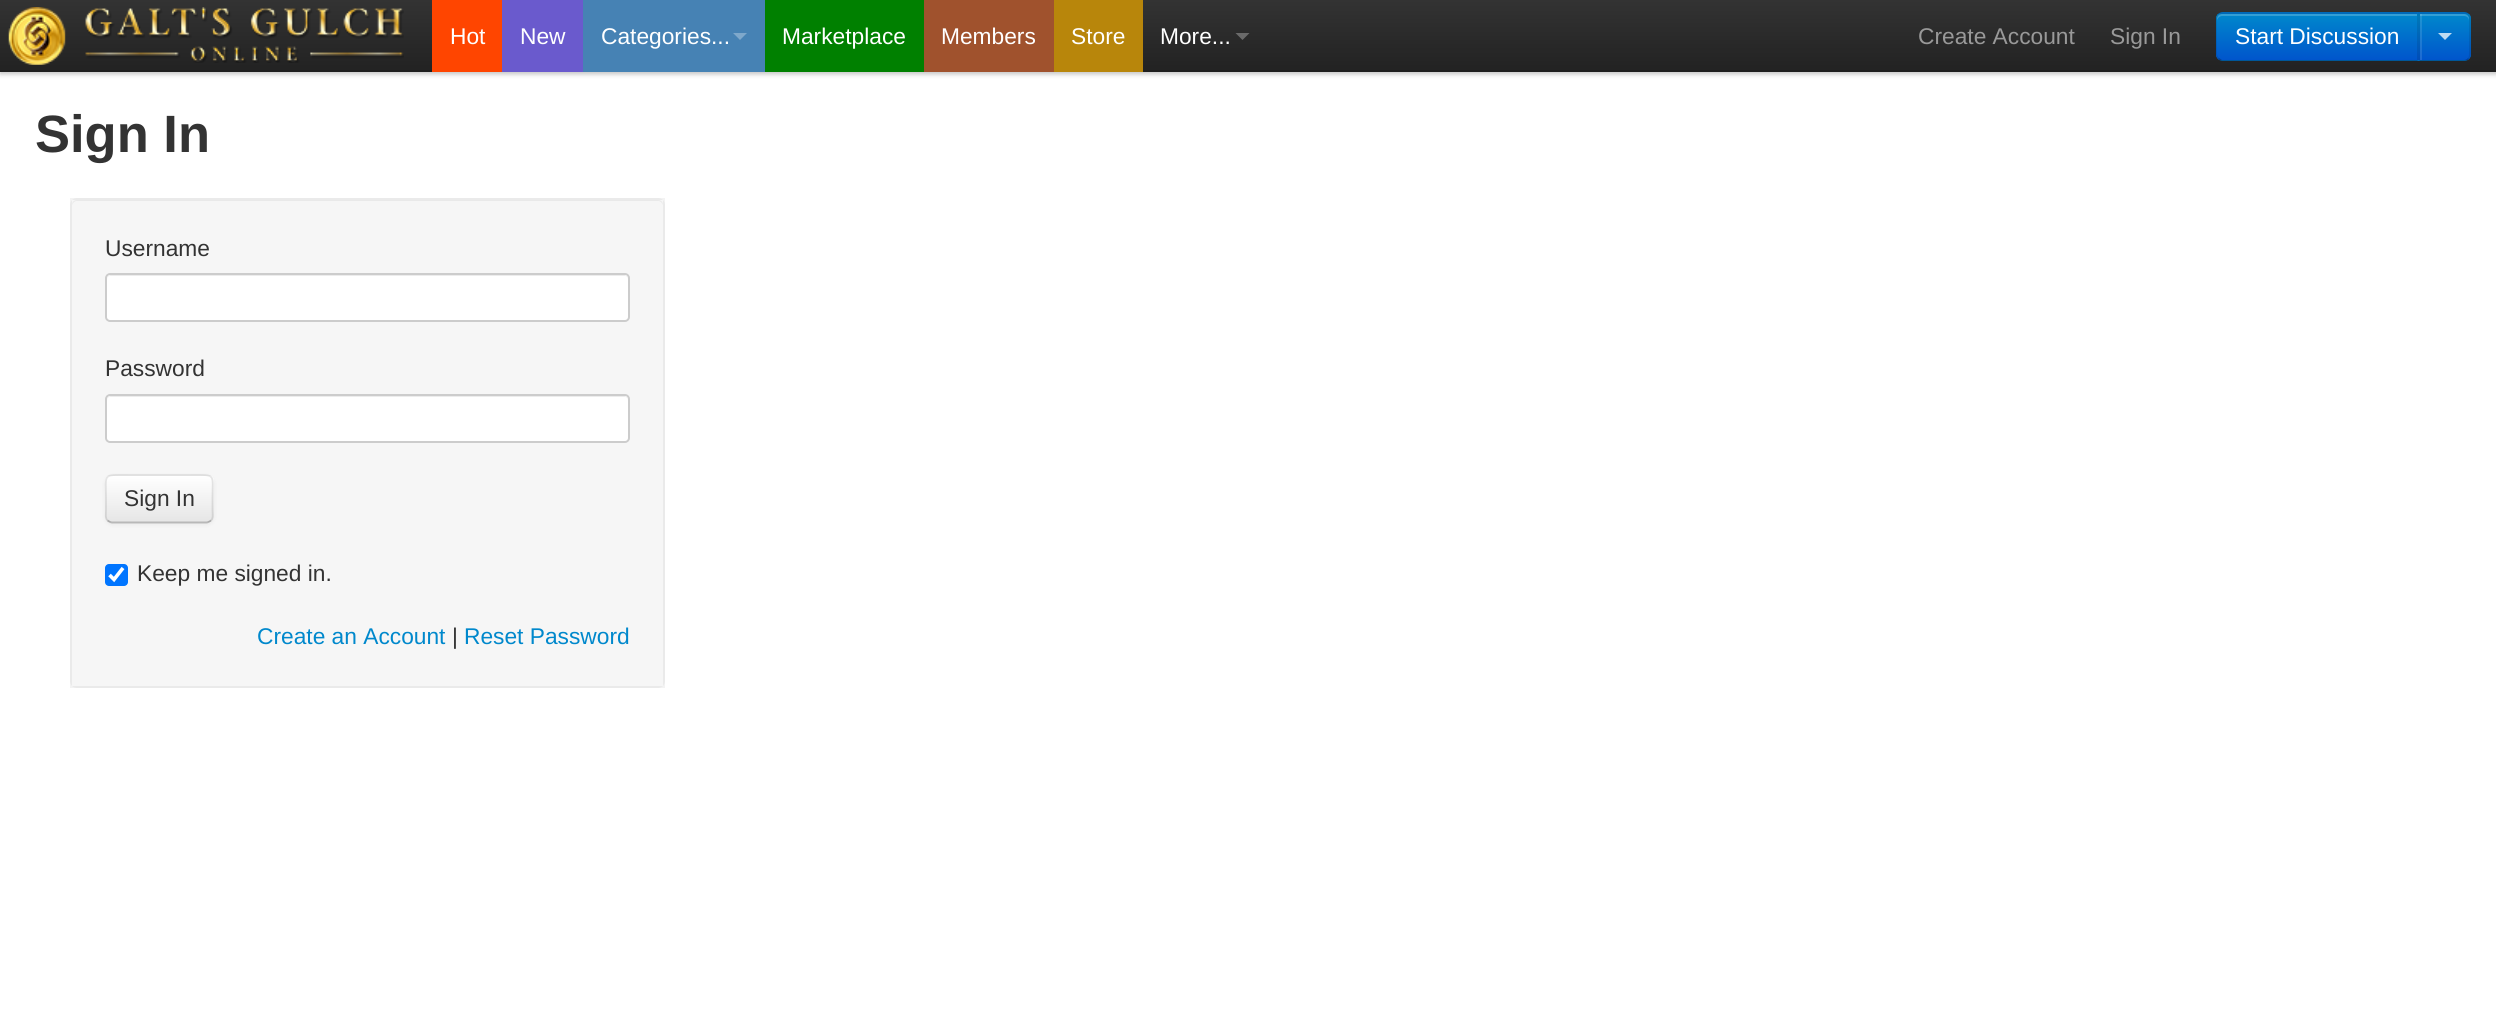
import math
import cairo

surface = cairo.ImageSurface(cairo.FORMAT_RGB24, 2496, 1030)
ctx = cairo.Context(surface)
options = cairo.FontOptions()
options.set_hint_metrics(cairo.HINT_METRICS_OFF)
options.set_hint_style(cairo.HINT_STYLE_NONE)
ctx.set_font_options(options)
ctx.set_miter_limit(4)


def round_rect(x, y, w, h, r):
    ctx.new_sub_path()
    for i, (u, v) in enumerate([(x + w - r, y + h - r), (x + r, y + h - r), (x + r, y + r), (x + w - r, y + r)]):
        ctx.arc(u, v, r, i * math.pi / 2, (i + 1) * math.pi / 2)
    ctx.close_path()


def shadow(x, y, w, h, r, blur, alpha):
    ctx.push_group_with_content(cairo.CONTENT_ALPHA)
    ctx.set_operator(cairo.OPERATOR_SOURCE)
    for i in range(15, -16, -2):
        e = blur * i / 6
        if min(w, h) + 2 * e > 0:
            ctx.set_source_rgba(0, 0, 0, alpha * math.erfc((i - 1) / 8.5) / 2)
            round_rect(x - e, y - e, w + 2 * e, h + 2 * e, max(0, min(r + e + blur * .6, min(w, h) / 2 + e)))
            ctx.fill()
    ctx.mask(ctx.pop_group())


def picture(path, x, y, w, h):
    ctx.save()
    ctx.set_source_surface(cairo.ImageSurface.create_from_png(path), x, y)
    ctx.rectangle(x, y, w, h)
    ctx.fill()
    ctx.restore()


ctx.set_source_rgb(1, 1, 1)
ctx.paint()
ctx.set_source_rgb(0, 0, 0)
shadow(0, 2, 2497, 72, 0, 2.5, 0.25)
gradient = cairo.LinearGradient(1249, 0, 1249, 72)
gradient.add_color_stop_rgba(0, 0.2, 0.2, 0.2, 1)
gradient.add_color_stop_rgba(1, 0.133, 0.133, 0.133, 1)
ctx.set_source(gradient)
ctx.rectangle(0, 0, 2496, 70)
ctx.fill()
ctx.set_source_rgb(0.122, 0.122, 0.122)
ctx.rectangle(0, 70, 2496, 2)
ctx.fill()
picture("img1.png", 8, 7, 58, 58)
picture("img2.png", 85, 7, 319, 56)
ctx.set_source_rgb(1, 0.271, 0)
ctx.rectangle(432, 0, 70, 72)
ctx.fill()
ctx.select_font_face("Liberation Sans")
ctx.set_font_size(22.75)
ctx.set_source_rgb(1, 1, 1)
ctx.move_to(450, 44)
ctx.show_text("Hot")
ctx.set_source_rgb(0.416, 0.353, 0.804)
ctx.rectangle(502, 0, 81, 72)
ctx.fill()
ctx.set_source_rgb(1, 1, 1)
ctx.move_to(520, 44)
ctx.show_text("New")
ctx.set_source_rgb(0.275, 0.51, 0.706)
ctx.rectangle(583, 0, 182, 72)
ctx.fill()
ctx.set_source_rgb(1, 1, 1)
ctx.move_to(601, 44)
ctx.show_text("Categories...")
ctx.set_source_rgb(0.494, 0.659, 0.796)
ctx.new_path()
ctx.move_to(733, 33)
ctx.line_to(747, 33)
ctx.line_to(740, 40)
ctx.close_path()
ctx.fill()
ctx.set_source_rgb(0, 0.502, 0)
ctx.rectangle(765, 0, 159, 72)
ctx.fill()
ctx.set_source_rgb(1, 1, 1)
ctx.move_to(782, 44)
ctx.show_text("Marketplace")
ctx.set_source_rgb(0.627, 0.322, 0.176)
ctx.rectangle(924, 0, 130, 72)
ctx.fill()
ctx.set_source_rgb(1, 1, 1)
ctx.move_to(941, 44)
ctx.show_text("Members")
ctx.set_source_rgb(0.722, 0.525, 0.043)
ctx.rectangle(1054, 0, 89, 72)
ctx.fill()
ctx.set_source_rgb(1, 1, 1)
ctx.move_to(1071, 44)
ctx.show_text("Store")
ctx.move_to(1160, 44)
ctx.show_text("More...")
ctx.set_source_rgb(0.416, 0.416, 0.416)
ctx.new_path()
ctx.move_to(1235.5, 33)
ctx.line_to(1249.5, 33)
ctx.line_to(1242.5, 40)
ctx.close_path()
ctx.fill()
ctx.set_source_rgb(0.6, 0.6, 0.6)
ctx.move_to(1918, 44)
ctx.show_text("Create Account")
ctx.move_to(2110, 44)
ctx.show_text("Sign In")
ctx.set_source_rgb(0, 0.455, 0.8)
ctx.new_path()
ctx.move_to(2223, 12)
ctx.line_to(2419, 12)
ctx.line_to(2419, 61)
ctx.line_to(2223, 61)
ctx.curve_to(2219, 61, 2216, 58, 2216, 54)
ctx.line_to(2216, 19)
ctx.curve_to(2216, 15, 2219, 12, 2223, 12)
ctx.close_path()
ctx.fill()
ctx.save()
ctx.new_path()
ctx.move_to(2223, 12)
ctx.line_to(2419, 12)
ctx.line_to(2419, 61)
ctx.line_to(2223, 61)
ctx.curve_to(2219, 61, 2216, 58, 2216, 54)
ctx.line_to(2216, 19)
ctx.curve_to(2216, 15, 2219, 12, 2223, 12)
ctx.close_path()
ctx.clip()
gradient = cairo.LinearGradient(2317, 14, 2317, 60)
gradient.add_color_stop_rgba(0, 0, 0.533, 0.8, 1)
gradient.add_color_stop_rgba(1, 0, 0.333, 0.8, 1)
ctx.set_source(gradient)
ctx.rectangle(2216, 14, 203, 46)
ctx.fill()
ctx.restore()
ctx.set_source_rgba(1, 1, 1, 0.2)
ctx.new_path()
ctx.move_to(2222, 16)
ctx.line_to(2417, 16)
ctx.line_to(2417, 14)
ctx.line_to(2222, 14)
ctx.curve_to(2219, 14, 2217, 16, 2217, 19)
ctx.line_to(2217, 21)
ctx.curve_to(2217, 18, 2220, 16, 2222, 16)
ctx.close_path()
ctx.fill()
ctx.set_source_rgba(0, 0, 0, 0.1)
ctx.new_path()
ctx.move_to(2222, 14)
ctx.line_to(2219, 15)
ctx.line_to(2218, 14)
ctx.line_to(2220, 12)
ctx.line_to(2418, 12)
ctx.line_to(2417, 14)
ctx.close_path()
ctx.fill()
ctx.new_path()
ctx.move_to(2418, 13)
ctx.line_to(2418, 61)
ctx.line_to(2417, 60)
ctx.line_to(2417, 14)
ctx.close_path()
ctx.fill()
ctx.set_source_rgba(0, 0, 0, 0.25)
ctx.new_path()
ctx.move_to(2418, 61)
ctx.line_to(2222, 61)
ctx.curve_to(2220, 61, 2219, 60, 2218, 59)
ctx.line_to(2219, 58)
ctx.line_to(2222, 60)
ctx.line_to(2417, 60)
ctx.close_path()
ctx.fill()
ctx.set_source_rgba(0, 0, 0, 0.1)
ctx.new_path()
ctx.move_to(2218, 59)
ctx.curve_to(2217, 58, 2216, 56, 2216, 54)
ctx.line_to(2216, 19)
ctx.curve_to(2216, 17, 2217, 16, 2218, 14)
ctx.line_to(2219, 15)
ctx.curve_to(2218, 16, 2217, 18, 2217, 19)
ctx.line_to(2217, 54)
ctx.curve_to(2217, 55, 2218, 57, 2219, 58)
ctx.close_path()
ctx.fill()
ctx.set_source_rgb(1, 1, 1)
ctx.move_to(2235, 44)
ctx.show_text("Start Discussion")
ctx.set_source_rgb(0, 0.455, 0.8)
ctx.new_path()
ctx.move_to(2419, 12)
ctx.line_to(2464, 12)
ctx.curve_to(2468, 12, 2471, 15, 2471, 19)
ctx.line_to(2471, 54)
ctx.curve_to(2471, 58, 2468, 61, 2464, 61)
ctx.line_to(2419, 61)
ctx.close_path()
ctx.fill()
ctx.save()
ctx.new_path()
ctx.move_to(2419, 12)
ctx.line_to(2464, 12)
ctx.curve_to(2468, 12, 2471, 15, 2471, 19)
ctx.line_to(2471, 54)
ctx.curve_to(2471, 58, 2468, 61, 2464, 61)
ctx.line_to(2419, 61)
ctx.close_path()
ctx.clip()
gradient = cairo.LinearGradient(2445, 14, 2445, 60)
gradient.add_color_stop_rgba(0, 0, 0.533, 0.8, 1)
gradient.add_color_stop_rgba(1, 0, 0.333, 0.8, 1)
ctx.set_source(gradient)
ctx.rectangle(2419, 14, 52, 46)
ctx.fill()
ctx.restore()
ctx.set_source_rgba(1, 1, 1, 0.2)
ctx.new_path()
ctx.move_to(2420, 16)
ctx.line_to(2464, 16)
ctx.curve_to(2467, 16, 2469, 18, 2469, 21)
ctx.line_to(2469, 19)
ctx.curve_to(2469, 16, 2467, 14, 2464, 14)
ctx.line_to(2420, 14)
ctx.close_path()
ctx.fill()
ctx.set_source_rgba(1, 1, 1, 0.12)
ctx.rectangle(2420, 14, 2, 46)
ctx.fill()
ctx.set_source_rgba(0, 0, 0, 0.1)
ctx.new_path()
ctx.move_to(2418, 12)
ctx.line_to(2466, 12)
ctx.line_to(2469, 14)
ctx.line_to(2468, 16)
ctx.curve_to(2467, 15, 2466, 14, 2464, 14)
ctx.line_to(2420, 14)
ctx.close_path()
ctx.fill()
ctx.new_path()
ctx.move_to(2471, 54)
ctx.line_to(2471, 19)
ctx.curve_to(2471, 17, 2470, 15, 2469, 14)
ctx.line_to(2468, 16)
ctx.curve_to(2469, 16, 2469, 18, 2469, 19)
ctx.line_to(2469, 54)
ctx.curve_to(2469, 55, 2469, 57, 2468, 58)
ctx.line_to(2469, 59)
ctx.curve_to(2470, 58, 2471, 56, 2471, 54)
ctx.close_path()
ctx.fill()
ctx.set_source_rgba(0, 0, 0, 0.25)
ctx.new_path()
ctx.move_to(2469, 59)
ctx.curve_to(2468, 60, 2466, 61, 2464, 61)
ctx.line_to(2419, 61)
ctx.line_to(2420, 60)
ctx.line_to(2464, 60)
ctx.curve_to(2466, 60, 2467, 59, 2468, 58)
ctx.close_path()
ctx.fill()
ctx.set_source_rgba(0, 0, 0, 0.1)
ctx.new_path()
ctx.move_to(2420, 14)
ctx.line_to(2420, 60)
ctx.line_to(2418, 61)
ctx.line_to(2418, 12)
ctx.close_path()
ctx.fill()
ctx.set_source_rgba(1, 1, 1, 0.75)
ctx.new_path()
ctx.move_to(2438, 33)
ctx.line_to(2452, 33)
ctx.line_to(2445, 40)
ctx.close_path()
ctx.fill()
ctx.select_font_face("Liberation Sans", cairo.FONT_SLANT_NORMAL, cairo.FONT_WEIGHT_BOLD)
ctx.set_font_size(52.5)
ctx.set_source_rgb(0.2, 0.2, 0.2)
ctx.move_to(35, 152)
ctx.show_text("Sign In")
ctx.set_source_rgb(0.961, 0.961, 0.961)
round_rect(70, 198, 595, 490, 7)
ctx.fill()
ctx.set_source_rgb(0.914, 0.914, 0.914)
ctx.new_path()
ctx.move_to(77, 201)
ctx.line_to(658, 201)
ctx.curve_to(661, 201, 663, 204, 663, 206)
ctx.line_to(663, 205)
ctx.curve_to(663, 202, 661, 200, 658, 200)
ctx.line_to(77, 200)
ctx.curve_to(74, 200, 72, 202, 72, 205)
ctx.line_to(72, 206)
ctx.curve_to(72, 204, 74, 201, 77, 201)
ctx.close_path()
ctx.fill()
ctx.rectangle(71, 199, 593, 488)
ctx.set_source_rgba(0, 0, 0, 0.05)
ctx.stroke()
ctx.select_font_face("Liberation Sans")
ctx.set_font_size(22.75)
ctx.set_source_rgb(0.2, 0.2, 0.2)
ctx.move_to(105, 256)
ctx.show_text("Username")
ctx.set_source_rgb(1, 1, 1)
round_rect(105, 273, 525, 49, 5)
ctx.fill()
ctx.set_source_rgb(0.925, 0.925, 0.925)
ctx.new_path()
ctx.move_to(110, 276)
ctx.line_to(625, 276)
ctx.curve_to(627, 276, 628, 278, 628, 280)
ctx.line_to(628, 279)
ctx.curve_to(628, 277, 626, 275, 624, 275)
ctx.line_to(111, 275)
ctx.curve_to(109, 275, 107, 277, 107, 279)
ctx.line_to(107, 280)
ctx.curve_to(107, 278, 108, 276, 110, 276)
ctx.close_path()
ctx.fill()
round_rect(106, 274, 523, 47, 4)
ctx.set_source_rgb(0.8, 0.8, 0.8)
ctx.stroke()
ctx.set_source_rgb(0.2, 0.2, 0.2)
ctx.move_to(105, 376)
ctx.show_text("Password")
ctx.set_source_rgb(1, 1, 1)
round_rect(105, 394, 525, 49, 5)
ctx.fill()
ctx.set_source_rgb(0.925, 0.925, 0.925)
ctx.new_path()
ctx.move_to(110, 397)
ctx.line_to(625, 397)
ctx.curve_to(627, 397, 628, 399, 628, 401)
ctx.line_to(628, 400)
ctx.curve_to(628, 398, 626, 396, 624, 396)
ctx.line_to(111, 396)
ctx.curve_to(109, 396, 107, 398, 107, 400)
ctx.line_to(107, 401)
ctx.curve_to(107, 399, 108, 397, 110, 397)
ctx.close_path()
ctx.fill()
round_rect(106, 395, 523, 47, 4)
ctx.set_source_rgb(0.8, 0.8, 0.8)
ctx.stroke()
ctx.set_source_rgb(0, 0, 0)
shadow(105, 476, 109, 49, 7, 2, 0.05)
ctx.set_source_rgb(0.961, 0.961, 0.961)
round_rect(105, 474, 109, 49, 7)
ctx.fill()
ctx.save()
round_rect(105, 474, 109, 49, 7)
ctx.clip()
gradient = cairo.LinearGradient(159, 476, 159, 522)
gradient.add_color_stop_rgba(0, 1, 1, 1, 1)
gradient.add_color_stop_rgba(1, 0.902, 0.902, 0.902, 1)
ctx.set_source(gradient)
ctx.rectangle(105, 476, 109, 46)
ctx.fill()
ctx.restore()
ctx.new_path()
ctx.move_to(211, 520.5)
ctx.curve_to(209.5, 521.5, 208, 522.5, 206.5, 522.5)
ctx.line_to(112, 522.5)
ctx.curve_to(110.5, 522.5, 109, 521.5, 107.5, 520.5)
ctx.set_source_rgba(0, 0, 0, 0.25)
ctx.set_line_width(1.8)
ctx.stroke()
ctx.new_path()
ctx.move_to(107.5, 520.5)
ctx.curve_to(105, 518, 106, 513.5, 106, 510.5)
ctx.line_to(106, 499)
ctx.curve_to(106, 473, 102, 475, 128, 475)
ctx.line_to(191, 475)
ctx.curve_to(216.5, 475, 212.5, 473, 212.5, 499)
ctx.line_to(212.5, 510.5)
ctx.curve_to(212.5, 513.5, 213.5, 518, 211, 520.5)
ctx.set_source_rgba(0, 0, 0, 0.1)
ctx.stroke()
ctx.set_source_rgb(0.2, 0.2, 0.2)
ctx.move_to(124, 506)
ctx.show_text("Sign In")
ctx.set_source_rgb(0, 0.459, 1)
round_rect(105, 564, 23, 22, 4)
ctx.fill()
ctx.new_path()
ctx.move_to(109.5, 575)
ctx.line_to(114, 579.5)
ctx.line_to(123, 568)
ctx.set_source_rgb(1, 1, 1)
ctx.set_line_width(3.6)
ctx.stroke()
ctx.set_source_rgb(0.2, 0.2, 0.2)
ctx.move_to(137, 581)
ctx.show_text("Keep me signed in.")
ctx.set_source_rgb(0, 0.533, 0.8)
ctx.move_to(257, 644)
ctx.show_text("Create an Account")
ctx.set_source_rgb(0.2, 0.2, 0.2)
ctx.move_to(452, 644)
ctx.show_text("|")
ctx.set_source_rgb(0, 0.533, 0.8)
ctx.move_to(464, 644)
ctx.show_text("Reset Password")
surface.write_to_png("page.png")
